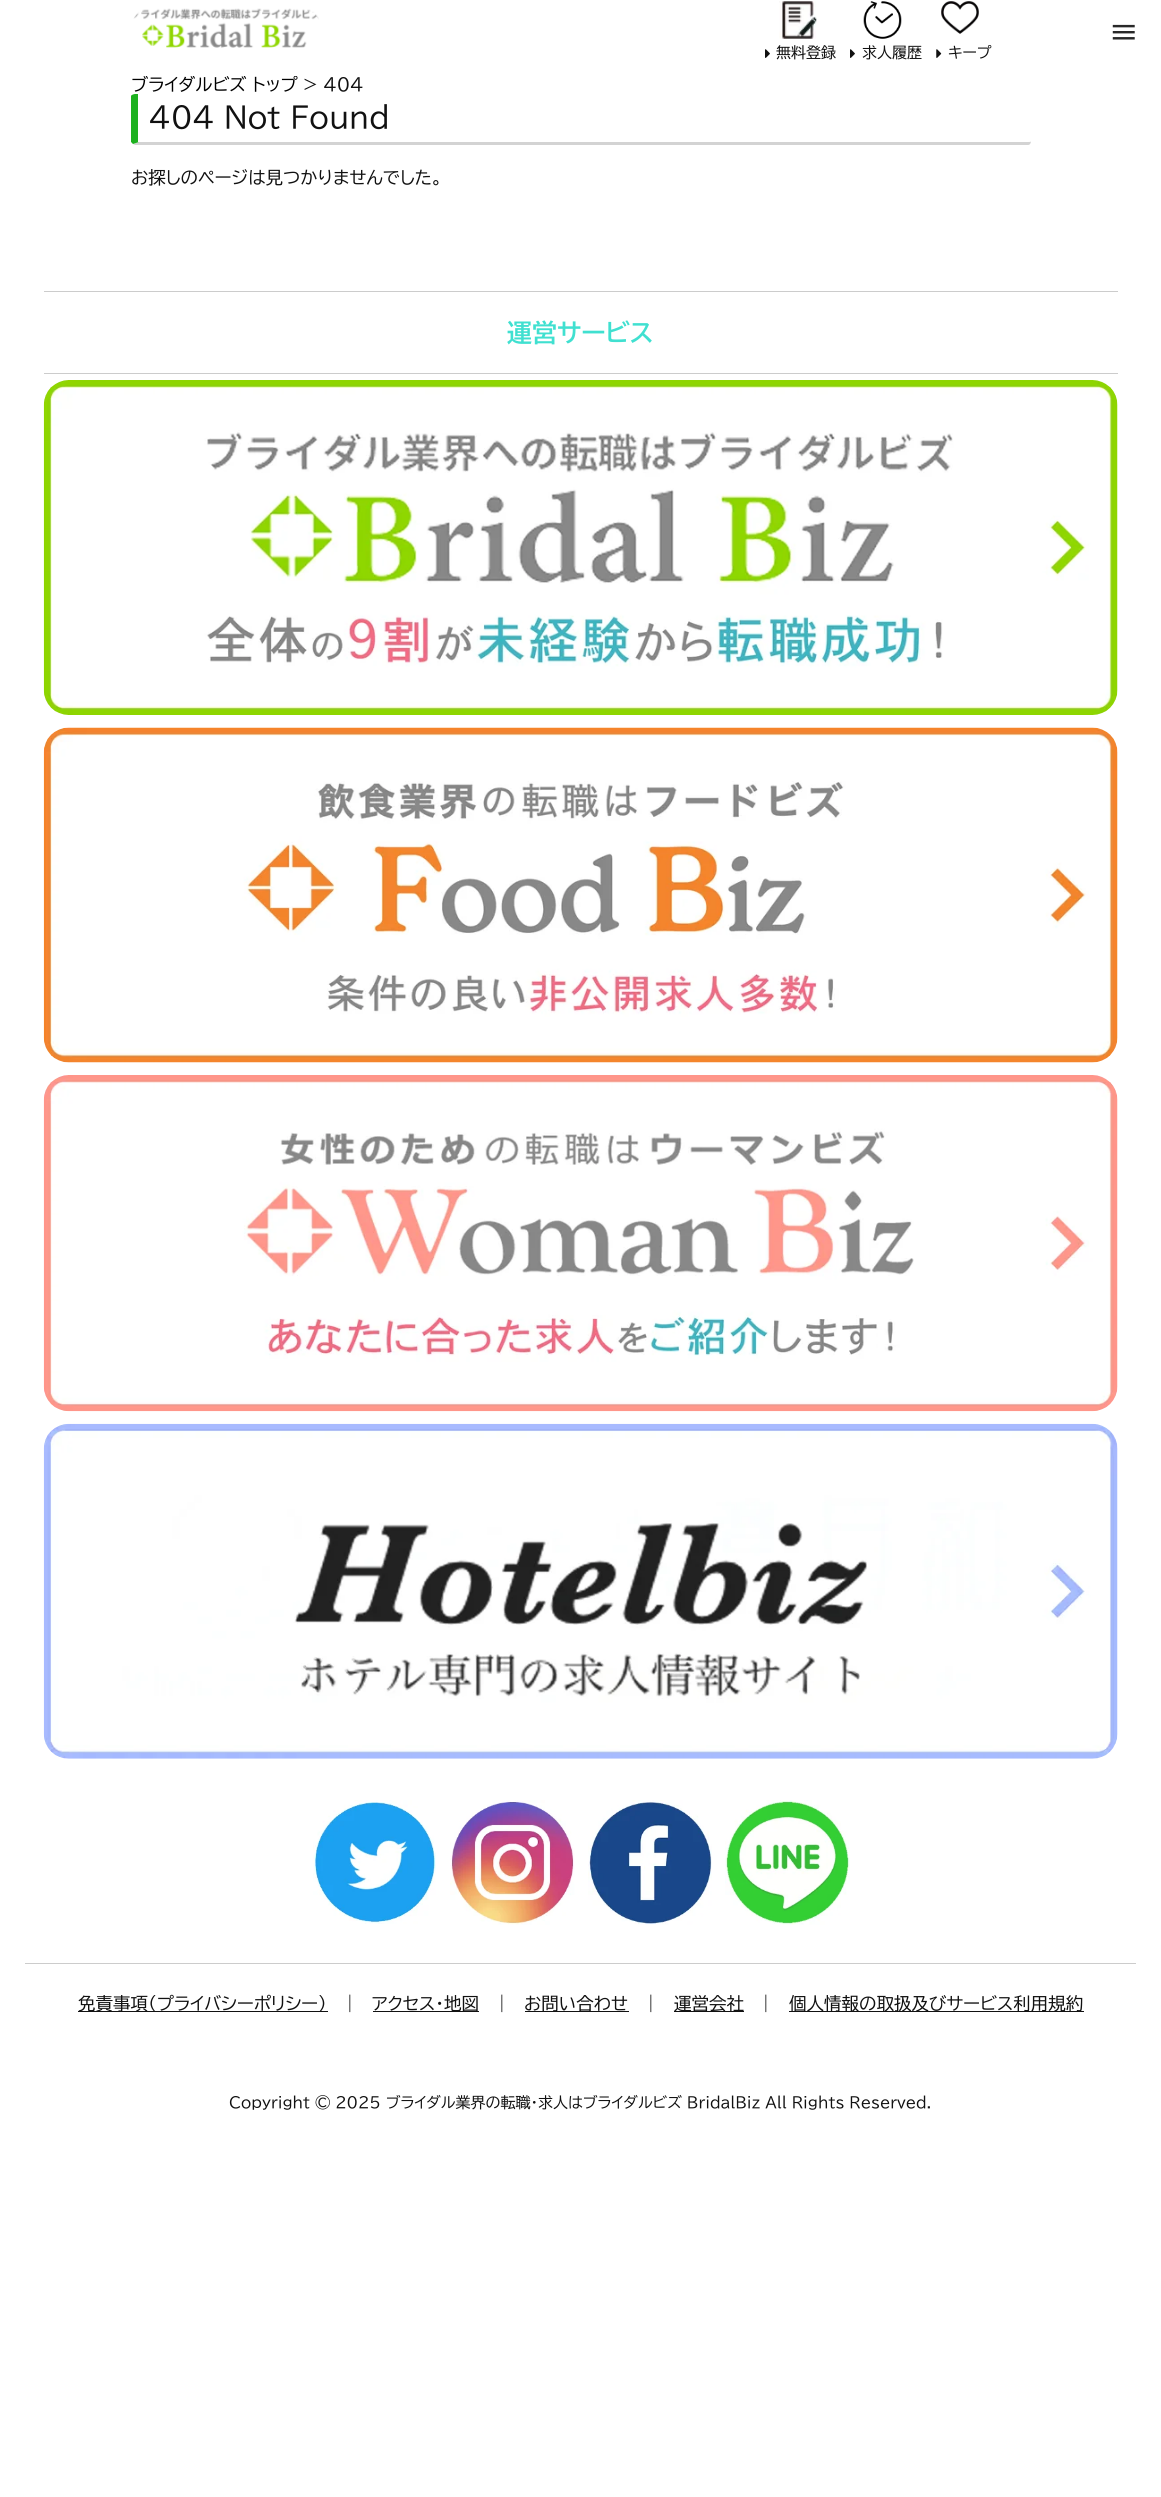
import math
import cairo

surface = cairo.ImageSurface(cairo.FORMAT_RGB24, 1161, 2497)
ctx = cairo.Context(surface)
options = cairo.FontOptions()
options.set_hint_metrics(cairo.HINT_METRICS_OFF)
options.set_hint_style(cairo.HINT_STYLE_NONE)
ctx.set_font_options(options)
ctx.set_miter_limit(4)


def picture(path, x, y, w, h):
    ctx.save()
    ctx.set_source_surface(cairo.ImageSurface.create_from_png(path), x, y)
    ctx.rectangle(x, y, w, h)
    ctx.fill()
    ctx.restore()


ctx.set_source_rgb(1, 1, 1)
ctx.paint()
picture("img1.png", 133, 8, 186, 40)
picture("img2.png", 1112, 24, 23, 16)
picture("img3.png", 779, 1, 38, 38)
picture("img4.png", 765, 49, 5, 9)
ctx.select_font_face("BIZ UDPGothic")
ctx.set_font_size(15)
ctx.set_source_rgb(0.067, 0.067, 0.067)
ctx.move_to(776, 58)
ctx.show_text("無料登録")
picture("img5.png", 863, 1, 39, 38)
picture("img4.png", 850, 49, 5, 9)
ctx.move_to(862, 58)
ctx.show_text("求人履歴")
picture("img6.png", 941, 1, 38, 33)
picture("img7.png", 936, 49, 6, 9)
ctx.move_to(948, 58)
ctx.show_text("キープ")
ctx.save()
ctx.rectangle(131, 76, 900, 18)
ctx.clip()
ctx.set_font_size(17.5)
ctx.set_source_rgb(0, 0, 0)
ctx.move_to(131, 91)
ctx.show_text("ブライダルビズ トップ")
ctx.restore()
ctx.set_font_size(17.5)
ctx.move_to(303, 91)
ctx.show_text("> 404")
ctx.set_source_rgb(0.827, 0.827, 0.827)
ctx.new_path()
ctx.move_to(135, 145)
ctx.line_to(1028, 145)
ctx.curve_to(1030, 145, 1031, 143, 1031, 141)
ctx.curve_to(1031, 142, 1030, 142, 1028, 142)
ctx.line_to(139, 142)
ctx.line_to(133, 144)
ctx.close_path()
ctx.fill()
ctx.set_source_rgb(0.114, 0.694, 0.122)
ctx.new_path()
ctx.move_to(135, 94)
ctx.line_to(138, 94)
ctx.line_to(138, 142)
ctx.line_to(139, 142)
ctx.line_to(133, 144)
ctx.line_to(131, 142)
ctx.line_to(131, 96)
ctx.curve_to(131, 95, 134, 94, 135, 94)
ctx.close_path()
ctx.fill()
ctx.set_font_size(28.75)
ctx.set_source_rgb(0.067, 0.067, 0.067)
ctx.move_to(149, 128)
ctx.show_text("404 Not Found")
ctx.set_font_size(17.5)
ctx.move_to(131, 184)
ctx.show_text("お探しのページは見つかりませんでした。")
ctx.set_source_rgb(0.8, 0.8, 0.8)
ctx.rectangle(44, 291, 1074, 1)
ctx.fill()
ctx.rectangle(44, 373, 1074, 1)
ctx.fill()
ctx.select_font_face("BIZ UDPGothic", cairo.FONT_SLANT_NORMAL, cairo.FONT_WEIGHT_BOLD)
ctx.set_font_size(25)
ctx.set_source_rgb(0.251, 0.878, 0.816)
ctx.move_to(507, 342)
ctx.show_text("運営サービス")
picture("img8.png", 43, 380, 1075, 335)
picture("img9.png", 43, 727, 1075, 336)
picture("img10.png", 43, 1075, 1075, 337)
picture("img11.png", 43, 1423, 1075, 336)
picture("img12.png", 313, 1800, 123, 124)
picture("img13.png", 450, 1800, 125, 125)
picture("img14.png", 588, 1800, 124, 125)
picture("img15.png", 725, 1800, 125, 125)
ctx.set_source_rgb(0.8, 0.8, 0.8)
ctx.rectangle(25, 1963, 1111, 1)
ctx.fill()
ctx.set_source_rgb(0.067, 0.067, 0.067)
ctx.rectangle(78, 2011, 250, 1)
ctx.fill()
ctx.select_font_face("BIZ UDPGothic")
ctx.set_font_size(17.5)
ctx.move_to(78, 2010)
ctx.show_text("免責事項（プライバシーポリシー）")
ctx.move_to(346, 2010)
ctx.show_text("|")
ctx.rectangle(373, 2011, 106, 1)
ctx.fill()
ctx.move_to(372, 2010)
ctx.show_text("アクセス・地図")
ctx.move_to(498, 2010)
ctx.show_text("|")
ctx.rectangle(525, 2011, 104, 1)
ctx.fill()
ctx.move_to(524, 2010)
ctx.show_text("お問い合わせ")
ctx.move_to(647, 2010)
ctx.show_text("|")
ctx.rectangle(674, 2011, 70, 1)
ctx.fill()
ctx.move_to(674, 2010)
ctx.show_text("運営会社")
ctx.move_to(762, 2010)
ctx.show_text("|")
ctx.rectangle(789, 2011, 295, 1)
ctx.fill()
ctx.move_to(789, 2010)
ctx.show_text("個人情報の取扱及びサービス利用規約")
ctx.set_font_size(15)
ctx.move_to(229, 2108)
ctx.show_text("Copyright © 2025 ブライダル業界の転職･求人はブライダルビズ BridalBiz All Rights Reserved.")
surface.write_to_png("page.png")
